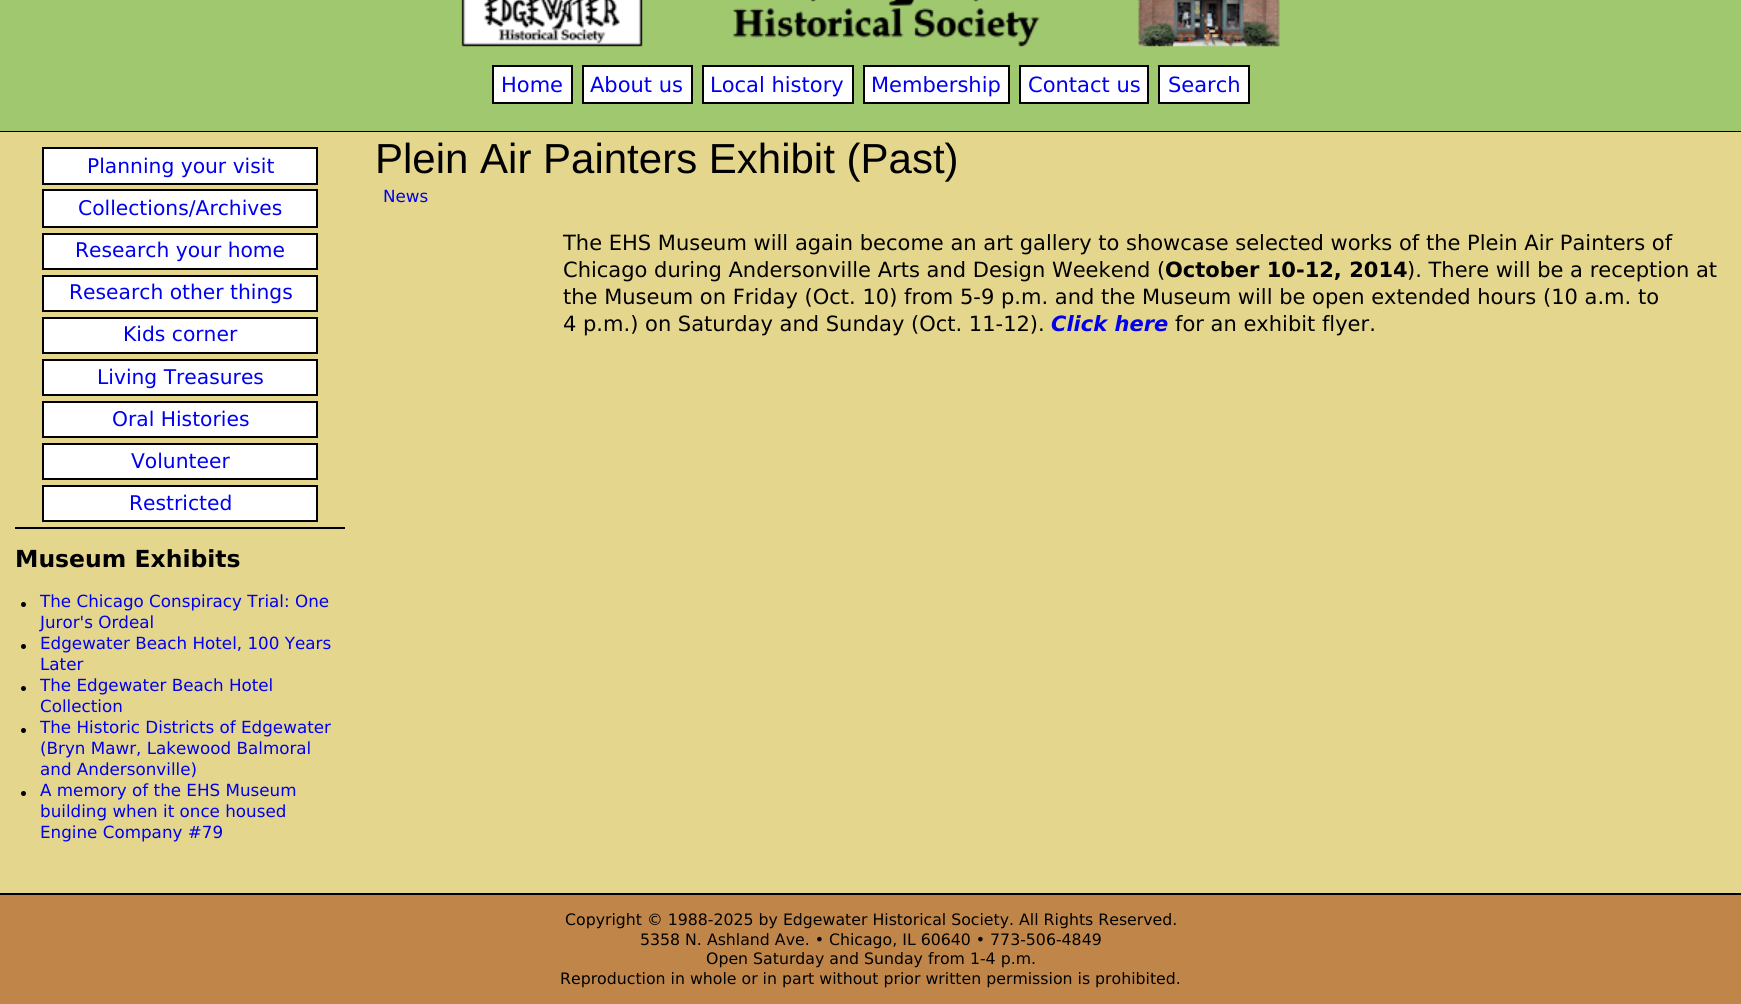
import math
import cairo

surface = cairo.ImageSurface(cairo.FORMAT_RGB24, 1741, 1004)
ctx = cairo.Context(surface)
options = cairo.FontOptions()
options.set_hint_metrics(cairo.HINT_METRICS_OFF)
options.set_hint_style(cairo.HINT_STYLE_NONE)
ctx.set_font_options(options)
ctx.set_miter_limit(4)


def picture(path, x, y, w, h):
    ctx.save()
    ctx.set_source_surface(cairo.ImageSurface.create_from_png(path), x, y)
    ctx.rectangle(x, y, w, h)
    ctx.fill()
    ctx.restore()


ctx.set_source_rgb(0.753, 0.522, 0.282)
ctx.paint()
ctx.set_source_rgb(0.627, 0.784, 0.435)
ctx.rectangle(0, 0, 1741, 131)
ctx.fill()
ctx.set_source_rgb(0, 0, 0)
ctx.rectangle(0, 131, 1741, 1)
ctx.fill()
picture("img1.png", 461, 0, 819, 47)
ctx.set_source_rgb(1, 1, 1)
ctx.rectangle(493, 66, 79, 37)
ctx.fill_preserve()
ctx.set_source_rgb(0, 0, 0)
ctx.stroke()
ctx.select_font_face("DejaVu Sans")
ctx.set_font_size(21)
ctx.set_source_rgb(0, 0, 0.933)
ctx.move_to(501, 92)
ctx.show_text("Home")
ctx.set_source_rgb(1, 1, 1)
ctx.rectangle(583, 66, 109, 37)
ctx.fill_preserve()
ctx.set_source_rgb(0, 0, 0)
ctx.stroke()
ctx.set_source_rgb(0, 0, 0.933)
ctx.move_to(590, 92)
ctx.show_text("About us")
ctx.set_source_rgb(1, 1, 1)
ctx.rectangle(703, 66, 150, 37)
ctx.fill_preserve()
ctx.set_source_rgb(0, 0, 0)
ctx.stroke()
ctx.set_source_rgb(0, 0, 0.933)
ctx.move_to(710, 92)
ctx.show_text("Local history")
ctx.set_source_rgb(1, 1, 1)
ctx.rectangle(864, 66, 145, 37)
ctx.fill_preserve()
ctx.set_source_rgb(0, 0, 0)
ctx.stroke()
ctx.set_source_rgb(0, 0, 0.933)
ctx.move_to(871, 92)
ctx.show_text("Membership")
ctx.set_source_rgb(1, 1, 1)
ctx.rectangle(1020, 66, 128, 37)
ctx.fill_preserve()
ctx.set_source_rgb(0, 0, 0)
ctx.stroke()
ctx.set_source_rgb(0, 0, 0.933)
ctx.move_to(1028, 92)
ctx.show_text("Contact us")
ctx.set_source_rgb(1, 1, 1)
ctx.rectangle(1159, 66, 90, 37)
ctx.fill_preserve()
ctx.set_source_rgb(0, 0, 0)
ctx.stroke()
ctx.set_source_rgb(0, 0, 0.933)
ctx.move_to(1168, 92)
ctx.show_text("Search")
ctx.set_source_rgb(0.894, 0.839, 0.549)
ctx.rectangle(0, 132, 1741, 761)
ctx.fill()
ctx.set_source_rgb(0, 0, 0)
ctx.rectangle(15, 527, 330, 2)
ctx.fill()
ctx.set_source_rgb(1, 1, 1)
ctx.rectangle(43, 148, 274, 36)
ctx.fill_preserve()
ctx.set_source_rgb(0, 0, 0)
ctx.stroke()
ctx.set_font_size(20.25)
ctx.set_source_rgb(0, 0, 0.933)
ctx.move_to(87, 173)
ctx.show_text("Planning your visit")
ctx.set_source_rgb(1, 1, 1)
ctx.rectangle(43, 190, 274, 37)
ctx.fill_preserve()
ctx.set_source_rgb(0, 0, 0)
ctx.stroke()
ctx.set_source_rgb(0, 0, 0.933)
ctx.move_to(78, 215)
ctx.show_text("Collections/Archives")
ctx.set_source_rgb(1, 1, 1)
ctx.rectangle(43, 234, 274, 35)
ctx.fill_preserve()
ctx.set_source_rgb(0, 0, 0)
ctx.stroke()
ctx.set_source_rgb(0, 0, 0.933)
ctx.move_to(75, 257)
ctx.show_text("Research your home")
ctx.set_source_rgb(1, 1, 1)
ctx.rectangle(43, 276, 274, 35)
ctx.fill_preserve()
ctx.set_source_rgb(0, 0, 0)
ctx.stroke()
ctx.set_source_rgb(0, 0, 0.933)
ctx.move_to(69, 299)
ctx.show_text("Research other things")
ctx.set_source_rgb(1, 1, 1)
ctx.rectangle(43, 318, 274, 35)
ctx.fill_preserve()
ctx.set_source_rgb(0, 0, 0)
ctx.stroke()
ctx.set_source_rgb(0, 0, 0.933)
ctx.move_to(123, 341)
ctx.show_text("Kids corner")
ctx.set_source_rgb(1, 1, 1)
ctx.rectangle(43, 360, 274, 35)
ctx.fill_preserve()
ctx.set_source_rgb(0, 0, 0)
ctx.stroke()
ctx.set_source_rgb(0, 0, 0.933)
ctx.move_to(97, 384)
ctx.show_text("Living Treasures")
ctx.set_source_rgb(1, 1, 1)
ctx.rectangle(43, 402, 274, 35)
ctx.fill_preserve()
ctx.set_source_rgb(0, 0, 0)
ctx.stroke()
ctx.set_source_rgb(0, 0, 0.933)
ctx.move_to(112, 426)
ctx.show_text("Oral Histories")
ctx.set_source_rgb(1, 1, 1)
ctx.rectangle(43, 444, 274, 35)
ctx.fill_preserve()
ctx.set_source_rgb(0, 0, 0)
ctx.stroke()
ctx.set_source_rgb(0, 0, 0.933)
ctx.move_to(131, 468)
ctx.show_text("Volunteer")
ctx.set_source_rgb(1, 1, 1)
ctx.rectangle(43, 486, 274, 35)
ctx.fill_preserve()
ctx.set_source_rgb(0, 0, 0)
ctx.stroke()
ctx.set_source_rgb(0, 0, 0.933)
ctx.move_to(129, 510)
ctx.show_text("Restricted")
ctx.select_font_face("DejaVu Sans", cairo.FONT_SLANT_NORMAL, cairo.FONT_WEIGHT_BOLD)
ctx.set_font_size(23.5)
ctx.set_source_rgb(0, 0, 0)
ctx.move_to(15, 567)
ctx.show_text("Museum Exhibits")
ctx.new_path()
ctx.arc(23.5, 604.5, 2.5, 0, 2 * math.pi)
ctx.fill()
ctx.select_font_face("DejaVu Sans")
ctx.set_font_size(16.75)
ctx.set_source_rgb(0, 0, 0.933)
ctx.move_to(40, 607)
ctx.show_text("The Chicago Conspiracy Trial: One")
ctx.move_to(40, 628)
ctx.show_text("Juror's Ordeal")
ctx.set_source_rgb(0, 0, 0)
ctx.new_path()
ctx.arc(23.5, 646.5, 2.5, 0, 2 * math.pi)
ctx.fill()
ctx.set_source_rgb(0, 0, 0.933)
ctx.move_to(40, 649)
ctx.show_text("Edgewater Beach Hotel, 100 Years")
ctx.move_to(40, 670)
ctx.show_text("Later")
ctx.set_source_rgb(0, 0, 0)
ctx.new_path()
ctx.arc(23.5, 688.5, 2.5, 0, 2 * math.pi)
ctx.fill()
ctx.set_source_rgb(0, 0, 0.933)
ctx.move_to(40, 691)
ctx.show_text("The Edgewater Beach Hotel")
ctx.move_to(40, 712)
ctx.show_text("Collection")
ctx.set_source_rgb(0, 0, 0)
ctx.new_path()
ctx.arc(23.5, 730.5, 2.5, 0, 2 * math.pi)
ctx.fill()
ctx.set_source_rgb(0, 0, 0.933)
ctx.move_to(40, 733)
ctx.show_text("The Historic Districts of Edgewater")
ctx.move_to(40, 754)
ctx.show_text("(Bryn Mawr, Lakewood Balmoral")
ctx.move_to(40, 775)
ctx.show_text("and Andersonville)")
ctx.set_source_rgb(0, 0, 0)
ctx.new_path()
ctx.arc(23.5, 793.5, 2.5, 0, 2 * math.pi)
ctx.fill()
ctx.set_source_rgb(0, 0, 0.933)
ctx.move_to(40, 796)
ctx.show_text("A memory of the EHS Museum")
ctx.move_to(40, 817)
ctx.show_text("building when it once housed")
ctx.move_to(40, 838)
ctx.show_text("Engine Company #79")
ctx.select_font_face("Liberation Sans")
ctx.set_font_size(42)
ctx.set_source_rgb(0, 0, 0)
ctx.move_to(375, 173)
ctx.show_text("Plein Air Painters Exhibit (Past)")
ctx.select_font_face("DejaVu Sans")
ctx.set_font_size(16.75)
ctx.set_source_rgb(0, 0, 0.933)
ctx.move_to(383, 202)
ctx.show_text("News")
ctx.set_font_size(21)
ctx.set_source_rgb(0, 0, 0)
ctx.move_to(563, 250)
ctx.show_text("The EHS Museum will again become an art gallery to showcase selected works of the Plein Air Painters of")
ctx.move_to(563, 277)
ctx.show_text("Chicago during Andersonville Arts and Design Weekend (")
ctx.select_font_face("DejaVu Sans", cairo.FONT_SLANT_NORMAL, cairo.FONT_WEIGHT_BOLD)
ctx.move_to(1165, 277)
ctx.show_text("October 10‑12, 2014")
ctx.select_font_face("DejaVu Sans")
ctx.move_to(1407, 277)
ctx.show_text("). There will be a reception at")
ctx.move_to(563, 304)
ctx.show_text("the Museum on Friday (Oct. 10) from 5‑9 p.m. and the Museum will be open extended hours (10 a.m. to")
ctx.move_to(563, 331)
ctx.show_text("4 p.m.) on Saturday and Sunday (Oct. 11‑12).")
ctx.select_font_face("DejaVu Sans", cairo.FONT_SLANT_ITALIC, cairo.FONT_WEIGHT_BOLD)
ctx.set_source_rgb(0, 0, 0.933)
ctx.move_to(1051, 331)
ctx.show_text("Click here")
ctx.select_font_face("DejaVu Sans")
ctx.set_source_rgb(0, 0, 0)
ctx.move_to(1175, 331)
ctx.show_text("for an exhibit flyer.")
ctx.rectangle(0, 893, 1741, 2)
ctx.fill()
ctx.set_font_size(15.75)
ctx.move_to(565, 925)
ctx.show_text("Copyright © 1988-2025 by Edgewater Historical Society. All Rights Reserved.")
ctx.move_to(640, 945)
ctx.show_text("5358 N. Ashland Ave. • Chicago, IL 60640 • 773‑506‑4849")
ctx.move_to(706, 964)
ctx.show_text("Open Saturday and Sunday from 1-4 p.m.")
ctx.move_to(560, 984)
ctx.show_text("Reproduction in whole or in part without prior written permission is prohibited.")
surface.write_to_png("page.png")
